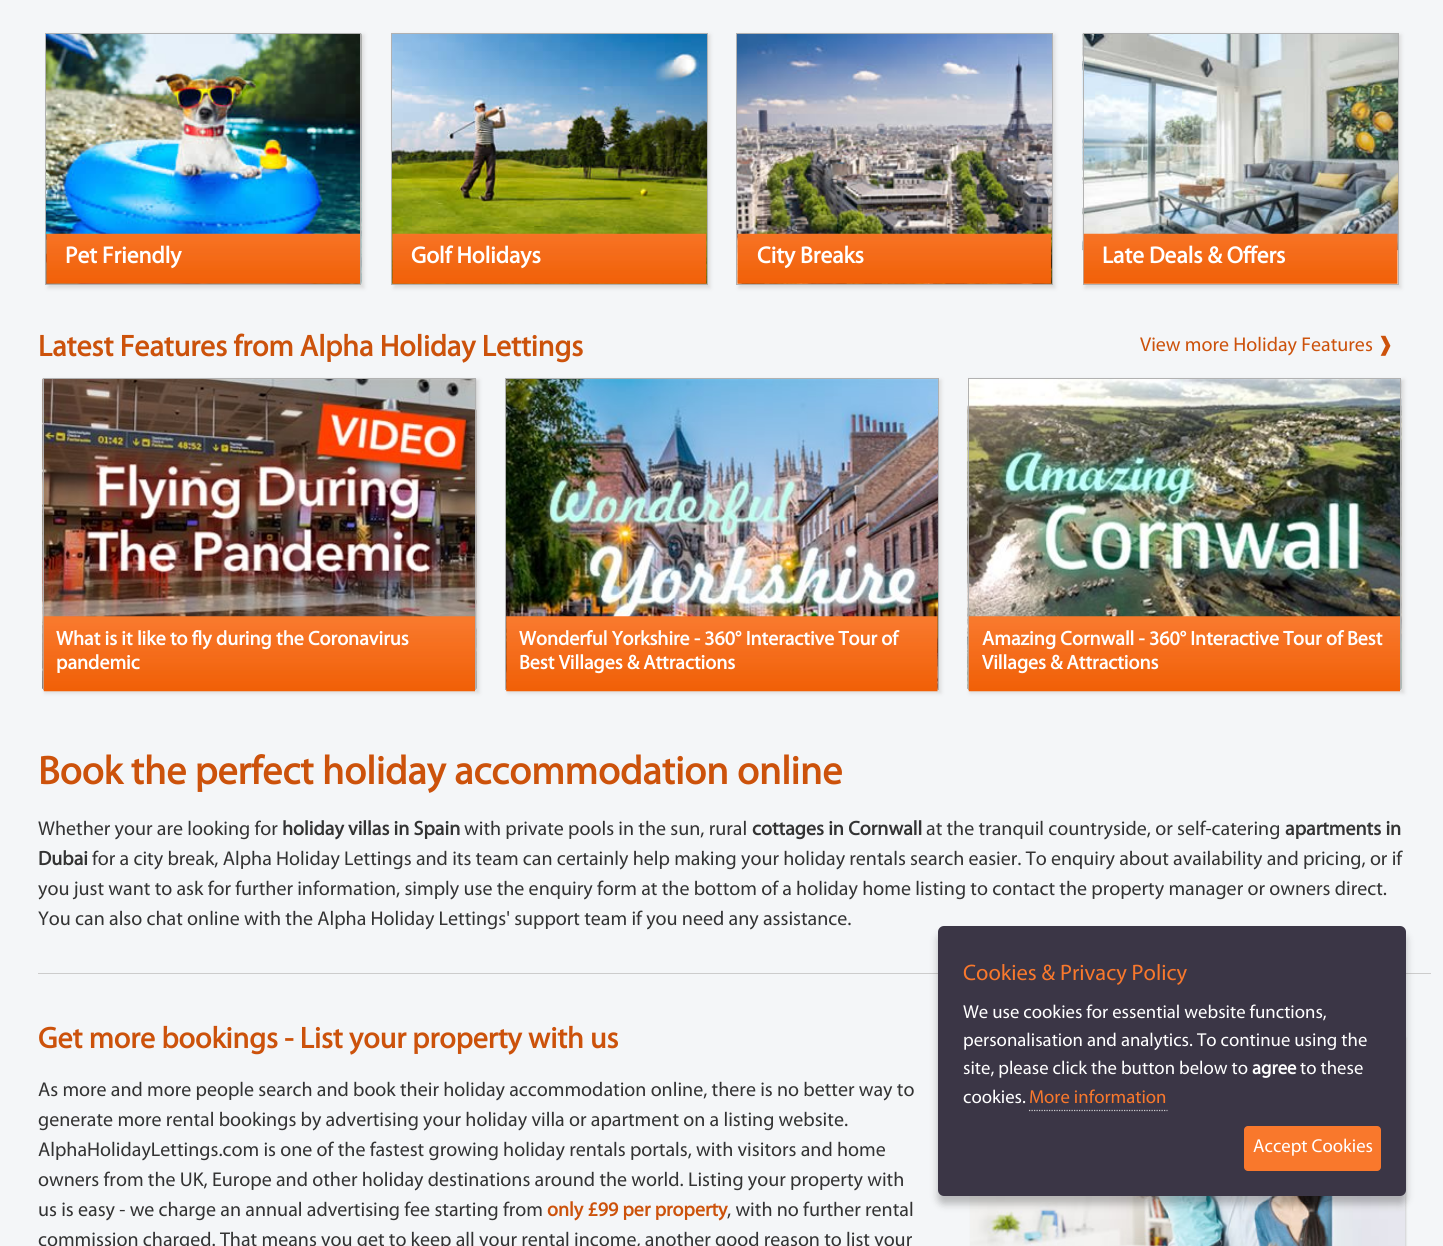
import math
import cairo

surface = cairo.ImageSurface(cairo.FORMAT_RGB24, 1443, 1246)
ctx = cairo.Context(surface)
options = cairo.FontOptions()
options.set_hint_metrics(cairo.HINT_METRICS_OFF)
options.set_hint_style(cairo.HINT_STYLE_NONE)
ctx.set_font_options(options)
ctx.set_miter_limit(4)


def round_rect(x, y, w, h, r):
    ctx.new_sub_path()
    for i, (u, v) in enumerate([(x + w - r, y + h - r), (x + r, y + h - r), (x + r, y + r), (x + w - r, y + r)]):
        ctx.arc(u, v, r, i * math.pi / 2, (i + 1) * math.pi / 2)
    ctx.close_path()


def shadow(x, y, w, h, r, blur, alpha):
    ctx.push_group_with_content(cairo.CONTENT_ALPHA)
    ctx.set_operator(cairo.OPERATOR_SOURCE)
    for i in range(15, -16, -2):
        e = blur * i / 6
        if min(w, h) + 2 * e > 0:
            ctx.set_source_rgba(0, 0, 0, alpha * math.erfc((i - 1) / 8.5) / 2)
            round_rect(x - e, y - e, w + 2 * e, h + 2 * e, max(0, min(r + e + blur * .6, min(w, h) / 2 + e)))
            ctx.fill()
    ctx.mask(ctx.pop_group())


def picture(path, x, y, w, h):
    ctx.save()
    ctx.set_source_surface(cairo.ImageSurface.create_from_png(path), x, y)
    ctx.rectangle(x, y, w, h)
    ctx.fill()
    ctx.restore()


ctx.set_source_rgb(0.957, 0.961, 0.969)
ctx.paint()
ctx.set_source_rgb(0.859, 0.859, 0.859)
shadow(48, 35, 316, 253, 0, 2, 1)
picture("img1.png", 46, 33, 316, 251)
ctx.rectangle(45.5, 33.5, 315, 251)
ctx.set_source_rgb(0.694, 0.694, 0.694)
ctx.set_line_width(1)
ctx.stroke()
picture("img2.png", 46, 233, 314, 51)
ctx.select_font_face("Myriad", cairo.FONT_SLANT_NORMAL, cairo.FONT_WEIGHT_BOLD)
ctx.set_font_size(23.5)
ctx.set_source_rgb(1, 1, 1)
ctx.move_to(65, 263)
ctx.show_text("Pet Friendly")
ctx.set_source_rgb(0.859, 0.859, 0.859)
shadow(394, 35, 316, 253, 0, 2, 1)
picture("img3.png", 392, 34, 315, 250)
ctx.rectangle(391.5, 33.5, 316, 251)
ctx.set_source_rgb(0.694, 0.694, 0.694)
ctx.stroke()
picture("img4.png", 392, 233, 315, 51)
ctx.set_source_rgb(1, 1, 1)
ctx.move_to(411, 263)
ctx.show_text("Golf Holidays")
ctx.set_source_rgb(0.859, 0.859, 0.859)
shadow(739, 35, 316, 253, 0, 2, 1)
picture("img5.png", 737, 34, 315, 250)
ctx.rectangle(736.5, 33.5, 316, 251)
ctx.set_source_rgb(0.694, 0.694, 0.694)
ctx.stroke()
picture("img6.png", 737, 233, 315, 51)
ctx.set_source_rgb(1, 1, 1)
ctx.move_to(757, 263)
ctx.show_text("City Breaks")
ctx.set_source_rgb(0.859, 0.859, 0.859)
shadow(1085, 35, 316, 253, 0, 2, 1)
picture("img7.png", 1082, 33, 316, 251)
ctx.rectangle(1083.5, 33.5, 315, 251)
ctx.set_source_rgb(0.694, 0.694, 0.694)
ctx.stroke()
picture("img8.png", 1083, 233, 315, 51)
ctx.set_source_rgb(1, 1, 1)
ctx.move_to(1102, 263)
ctx.show_text("Late Deals & Offers")
ctx.set_font_size(30)
ctx.set_source_rgb(0.8, 0.322, 0.043)
ctx.move_to(38, 356)
ctx.show_text("Latest Features from Alpha Holiday Lettings")
ctx.select_font_face("Myriad")
ctx.set_font_size(20)
ctx.move_to(1140, 351)
ctx.show_text("View more Holiday Features")
ctx.select_font_face("DejaVu Sans")
ctx.move_to(1377, 351)
ctx.show_text("❱")
ctx.set_source_rgb(0.859, 0.859, 0.859)
shadow(45, 380, 434, 313, 0, 2, 1)
picture("img9.png", 42, 378, 435, 311)
ctx.rectangle(43.5, 378.5, 432, 311)
ctx.set_source_rgb(0.694, 0.694, 0.694)
ctx.stroke()
picture("img10.png", 43, 616, 432, 76)
ctx.select_font_face("Myriad", cairo.FONT_SLANT_NORMAL, cairo.FONT_WEIGHT_BOLD)
ctx.set_source_rgb(1, 1, 1)
ctx.move_to(56, 645)
ctx.show_text("What is it like to fly during the Coronavirus")
ctx.move_to(56, 669)
ctx.show_text("pandemic")
ctx.set_source_rgb(0.859, 0.859, 0.859)
shadow(508, 380, 433, 313, 0, 2, 1)
picture("img11.png", 506, 379, 432, 310)
ctx.rectangle(505.5, 378.5, 433, 311)
ctx.set_source_rgb(0.694, 0.694, 0.694)
ctx.stroke()
picture("img12.png", 506, 616, 432, 76)
ctx.set_source_rgb(1, 1, 1)
ctx.move_to(519, 645)
ctx.show_text("Wonderful Yorkshire - 360° Interactive Tour of")
ctx.move_to(519, 669)
ctx.show_text("Best Villages & Attractions")
ctx.set_source_rgb(0.859, 0.859, 0.859)
shadow(970, 380, 434, 313, 0, 2, 1)
picture("img13.png", 967, 378, 435, 311)
ctx.rectangle(968.5, 378.5, 432, 311)
ctx.set_source_rgb(0.694, 0.694, 0.694)
ctx.stroke()
picture("img14.png", 968, 616, 432, 76)
ctx.set_source_rgb(1, 1, 1)
ctx.move_to(982, 645)
ctx.show_text("Amazing Cornwall - 360° Interactive Tour of Best")
ctx.move_to(982, 669)
ctx.show_text("Villages & Attractions")
ctx.set_font_size(40)
ctx.set_source_rgb(0.8, 0.322, 0.043)
ctx.move_to(38, 784)
ctx.show_text("Book the perfect holiday accommodation online")
ctx.select_font_face("Myriad")
ctx.set_font_size(20)
ctx.set_source_rgb(0.2, 0.2, 0.2)
ctx.move_to(38, 835)
ctx.show_text("Whether your are looking for")
ctx.select_font_face("Myriad", cairo.FONT_SLANT_NORMAL, cairo.FONT_WEIGHT_BOLD)
ctx.move_to(282, 835)
ctx.show_text("holiday villas in Spain")
ctx.select_font_face("Myriad")
ctx.move_to(464, 835)
ctx.show_text("with private pools in the sun, rural")
ctx.select_font_face("Myriad", cairo.FONT_SLANT_NORMAL, cairo.FONT_WEIGHT_BOLD)
ctx.move_to(752, 835)
ctx.show_text("cottages in Cornwall")
ctx.select_font_face("Myriad")
ctx.move_to(926, 835)
ctx.show_text("at the tranquil countryside, or self-catering")
ctx.select_font_face("Myriad", cairo.FONT_SLANT_NORMAL, cairo.FONT_WEIGHT_BOLD)
ctx.move_to(1285, 835)
ctx.show_text("apartments in")
ctx.move_to(38, 865)
ctx.show_text("Dubai")
ctx.select_font_face("Myriad")
ctx.move_to(92, 865)
ctx.show_text("for a city break, Alpha Holiday Lettings and its team can certainly help making your holiday rentals search easier. To enquiry about availability and pricing, or if")
ctx.move_to(38, 895)
ctx.show_text("you just want to ask for further information, simply use the enquiry form at the bottom of a holiday home listing to contact the property manager or owners direct.")
ctx.move_to(38, 925)
ctx.show_text("You can also chat online with the Alpha Holiday Lettings' support team if you need any assistance.")
ctx.set_source_rgb(0.8, 0.8, 0.8)
ctx.rectangle(38, 973, 1393, 1)
ctx.fill()
ctx.select_font_face("Myriad", cairo.FONT_SLANT_NORMAL, cairo.FONT_WEIGHT_BOLD)
ctx.set_font_size(30)
ctx.set_source_rgb(0.8, 0.322, 0.043)
ctx.move_to(38, 1048)
ctx.show_text("Get more bookings - List your property with us")
ctx.select_font_face("Myriad")
ctx.set_font_size(20)
ctx.set_source_rgb(0.2, 0.2, 0.2)
ctx.move_to(38, 1096)
ctx.show_text("As more and more people search and book their holiday accommodation online, there is no better way to")
ctx.move_to(38, 1126)
ctx.show_text("generate more rental bookings by advertising your holiday villa or apartment on a listing website.")
ctx.move_to(38, 1156)
ctx.show_text("AlphaHolidayLettings.com is one of the fastest growing holiday rentals portals, with visitors and home")
ctx.move_to(38, 1186)
ctx.show_text("owners from the UK, Europe and other holiday destinations around the world. Listing your property with")
ctx.move_to(38, 1216)
ctx.show_text("us is easy - we charge an annual advertising fee starting from")
ctx.select_font_face("Myriad", cairo.FONT_SLANT_NORMAL, cairo.FONT_WEIGHT_BOLD)
ctx.set_source_rgb(0.8, 0.322, 0.043)
ctx.move_to(547, 1216)
ctx.show_text("only £99 per property")
ctx.select_font_face("Myriad")
ctx.set_source_rgb(0.2, 0.2, 0.2)
ctx.move_to(727, 1216)
ctx.show_text(", with no further rental")
ctx.move_to(38, 1246)
ctx.show_text("commission charged. That means you get to keep all your rental income, another good reason to list your")
ctx.set_source_rgb(0.196, 0.196, 0.196)
shadow(971, 1038, 435, 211, 0, 1, 0.2)
picture("img15.png", 970, 1193, 435, 53)
ctx.set_source_rgb(0, 0, 0)
shadow(938, 934, 468, 270, 6, 4, 0.25)
ctx.set_source_rgb(0.231, 0.212, 0.275)
round_rect(938, 926, 468, 270, 6)
ctx.fill()
ctx.set_font_size(22.5)
ctx.set_source_rgb(0.973, 0.471, 0.173)
ctx.move_to(963, 980)
ctx.show_text("Cookies & Privacy Policy")
ctx.set_font_size(18.75)
ctx.set_source_rgb(1, 1, 1)
ctx.move_to(963, 1018)
ctx.show_text("We use cookies for essential website functions,")
ctx.move_to(963, 1046)
ctx.show_text("personalisation and analytics. To continue using the")
ctx.move_to(963, 1074)
ctx.show_text("site, please click the button below to")
ctx.select_font_face("Myriad", cairo.FONT_SLANT_NORMAL, cairo.FONT_WEIGHT_BOLD)
ctx.move_to(1252, 1074)
ctx.show_text("agree")
ctx.select_font_face("Myriad")
ctx.move_to(1300, 1074)
ctx.show_text("to these")
ctx.move_to(963, 1103)
ctx.show_text("cookies.")
ctx.set_source_rgb(0.973, 0.471, 0.173)
ctx.move_to(1029, 1103)
ctx.show_text("More information")
ctx.new_path()
ctx.move_to(1029, 1110.5)
ctx.line_to(1167.5, 1110.5)
ctx.set_source_rgb(0.808, 0.804, 0.82)
ctx.set_line_width(1.2)
ctx.set_dash([1.25, 1.25])
ctx.stroke()
ctx.set_source_rgb(0.973, 0.471, 0.173)
round_rect(1244, 1126, 137, 45, 4)
ctx.fill()
ctx.set_source_rgb(1, 1, 1)
ctx.move_to(1253, 1152)
ctx.show_text("Accept Cookies")
surface.write_to_png("page.png")
